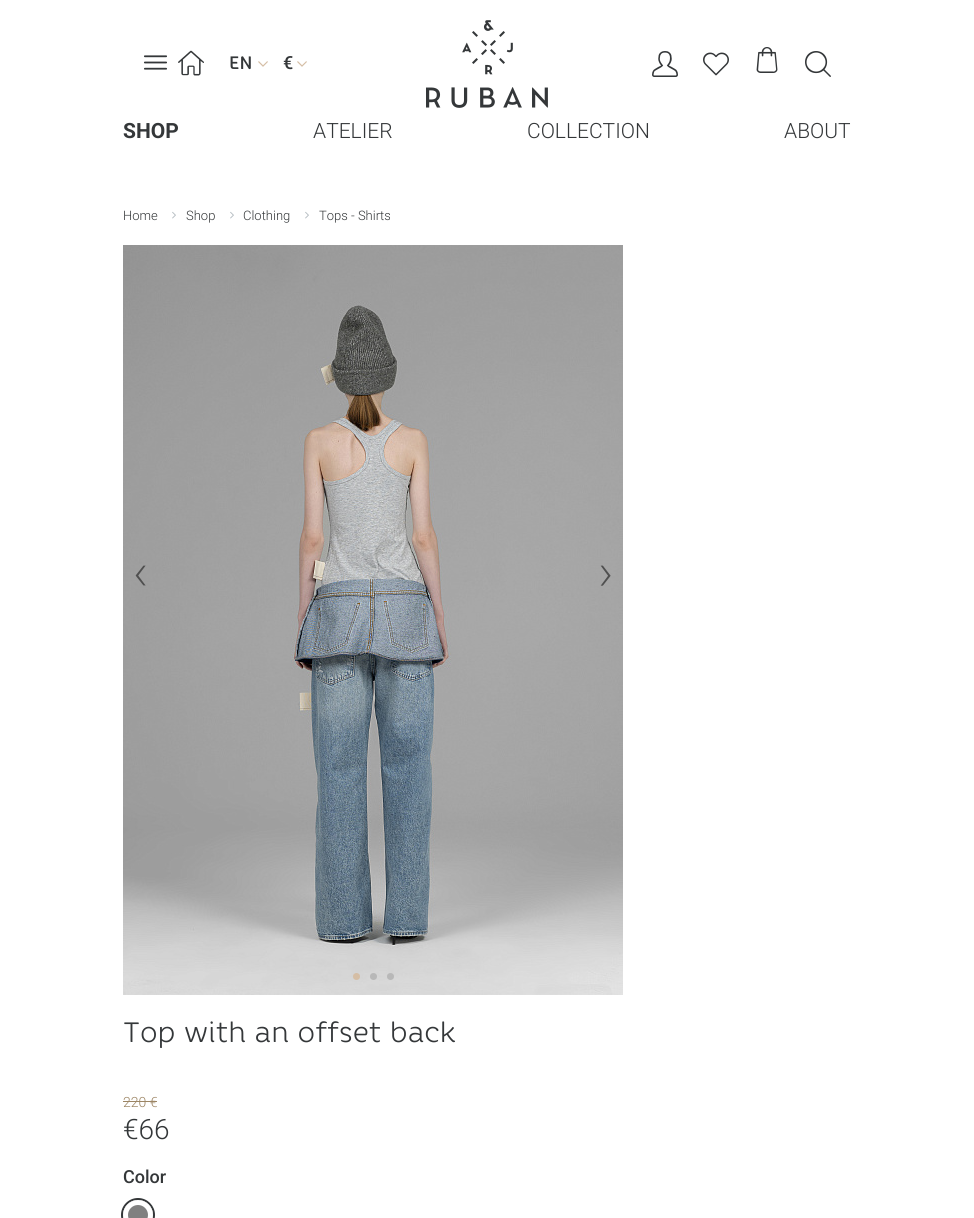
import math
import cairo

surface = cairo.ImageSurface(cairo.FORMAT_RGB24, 974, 1218)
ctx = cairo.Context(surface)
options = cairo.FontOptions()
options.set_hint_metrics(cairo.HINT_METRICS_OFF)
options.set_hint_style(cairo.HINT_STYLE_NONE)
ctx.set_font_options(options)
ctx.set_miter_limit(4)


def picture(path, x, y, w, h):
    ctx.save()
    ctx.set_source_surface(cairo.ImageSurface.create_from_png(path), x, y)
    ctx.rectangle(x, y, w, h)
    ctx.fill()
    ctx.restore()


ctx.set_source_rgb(1, 1, 1)
ctx.paint()
picture("img1.png", 144, 55, 23, 15)
picture("img2.png", 178, 50, 26, 26)
ctx.select_font_face("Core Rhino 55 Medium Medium")
ctx.set_font_size(18)
ctx.set_source_rgb(0.204, 0.216, 0.224)
ctx.move_to(229, 69)
ctx.show_text("EN")
picture("img3.png", 258, 61, 10, 6)
ctx.select_font_face("Roboto Medium")
ctx.move_to(283, 69)
ctx.show_text("€")
picture("img3.png", 297, 61, 10, 6)
picture("img4.png", 426, 20, 122, 88)
picture("img5.png", 652, 51, 26, 26)
picture("img6.png", 703, 52, 26, 24)
picture("img7.png", 756, 47, 22, 26)
picture("img8.png", 805, 51, 26, 26)
ctx.select_font_face("Roboto", cairo.FONT_SLANT_NORMAL, cairo.FONT_WEIGHT_BOLD)
ctx.set_font_size(21)
ctx.move_to(123, 138)
ctx.show_text("SHOP")
ctx.select_font_face("Roboto Light")
ctx.move_to(313, 138)
ctx.show_text("ATELIER")
ctx.move_to(527, 138)
ctx.show_text("COLLECTION")
ctx.move_to(784, 138)
ctx.show_text("ABOUT")
ctx.set_font_size(13)
ctx.move_to(123, 220)
ctx.show_text("Home")
picture("img9.png", 172, 211, 4, 8)
ctx.move_to(186, 220)
ctx.show_text("Shop")
picture("img9.png", 230, 211, 4, 8)
ctx.move_to(243, 220)
ctx.show_text("Clothing")
picture("img9.png", 305, 211, 4, 8)
ctx.move_to(319, 220)
ctx.show_text("Tops - Shirts")
picture("img10.png", 123, 245, 500, 750)
ctx.select_font_face("Roboto ExtraLight")
ctx.set_font_size(53)
ctx.set_source_rgb(0.31, 0.31, 0.31)
ctx.move_to(133, 590)
ctx.show_text("‹")
ctx.move_to(598, 590)
ctx.show_text("›")
ctx.set_source_rgb(0.835, 0.745, 0.647)
ctx.new_path()
ctx.arc(356.5, 976.5, 3.5, 0, 2 * math.pi)
ctx.fill()
ctx.set_source_rgb(0.722, 0.722, 0.722)
ctx.arc(373.5, 976.5, 3.5, 0, 2 * math.pi)
ctx.fill()
ctx.arc(390.5, 976.5, 3.5, 0, 2 * math.pi)
ctx.fill()
ctx.select_font_face("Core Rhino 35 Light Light")
ctx.set_font_size(28)
ctx.set_source_rgb(0.204, 0.216, 0.224)
ctx.move_to(123, 1042)
ctx.show_text("Top with an offset back")
ctx.select_font_face("Roboto Light")
ctx.set_font_size(14)
ctx.set_source_rgb(0.612, 0.522, 0.392)
ctx.move_to(123, 1107)
ctx.show_text("220 €")
ctx.rectangle(123, 1101, 34, 1)
ctx.fill()
ctx.set_font_size(28)
ctx.set_source_rgb(0.204, 0.216, 0.224)
ctx.move_to(123, 1139)
ctx.show_text("€66")
ctx.select_font_face("Roboto Medium")
ctx.set_font_size(18)
ctx.move_to(123, 1183)
ctx.show_text("Color")
ctx.new_path()
ctx.arc(138, 1215, 16, 0, 2 * math.pi)
ctx.stroke()
picture("img11.png", 123, 1200, 30, 18)
ctx.arc(138, 1215, 12.5, 0, 2 * math.pi)
ctx.set_source_rgb(1, 1, 1)
ctx.set_line_width(5)
ctx.stroke()
surface.write_to_png("page.png")
